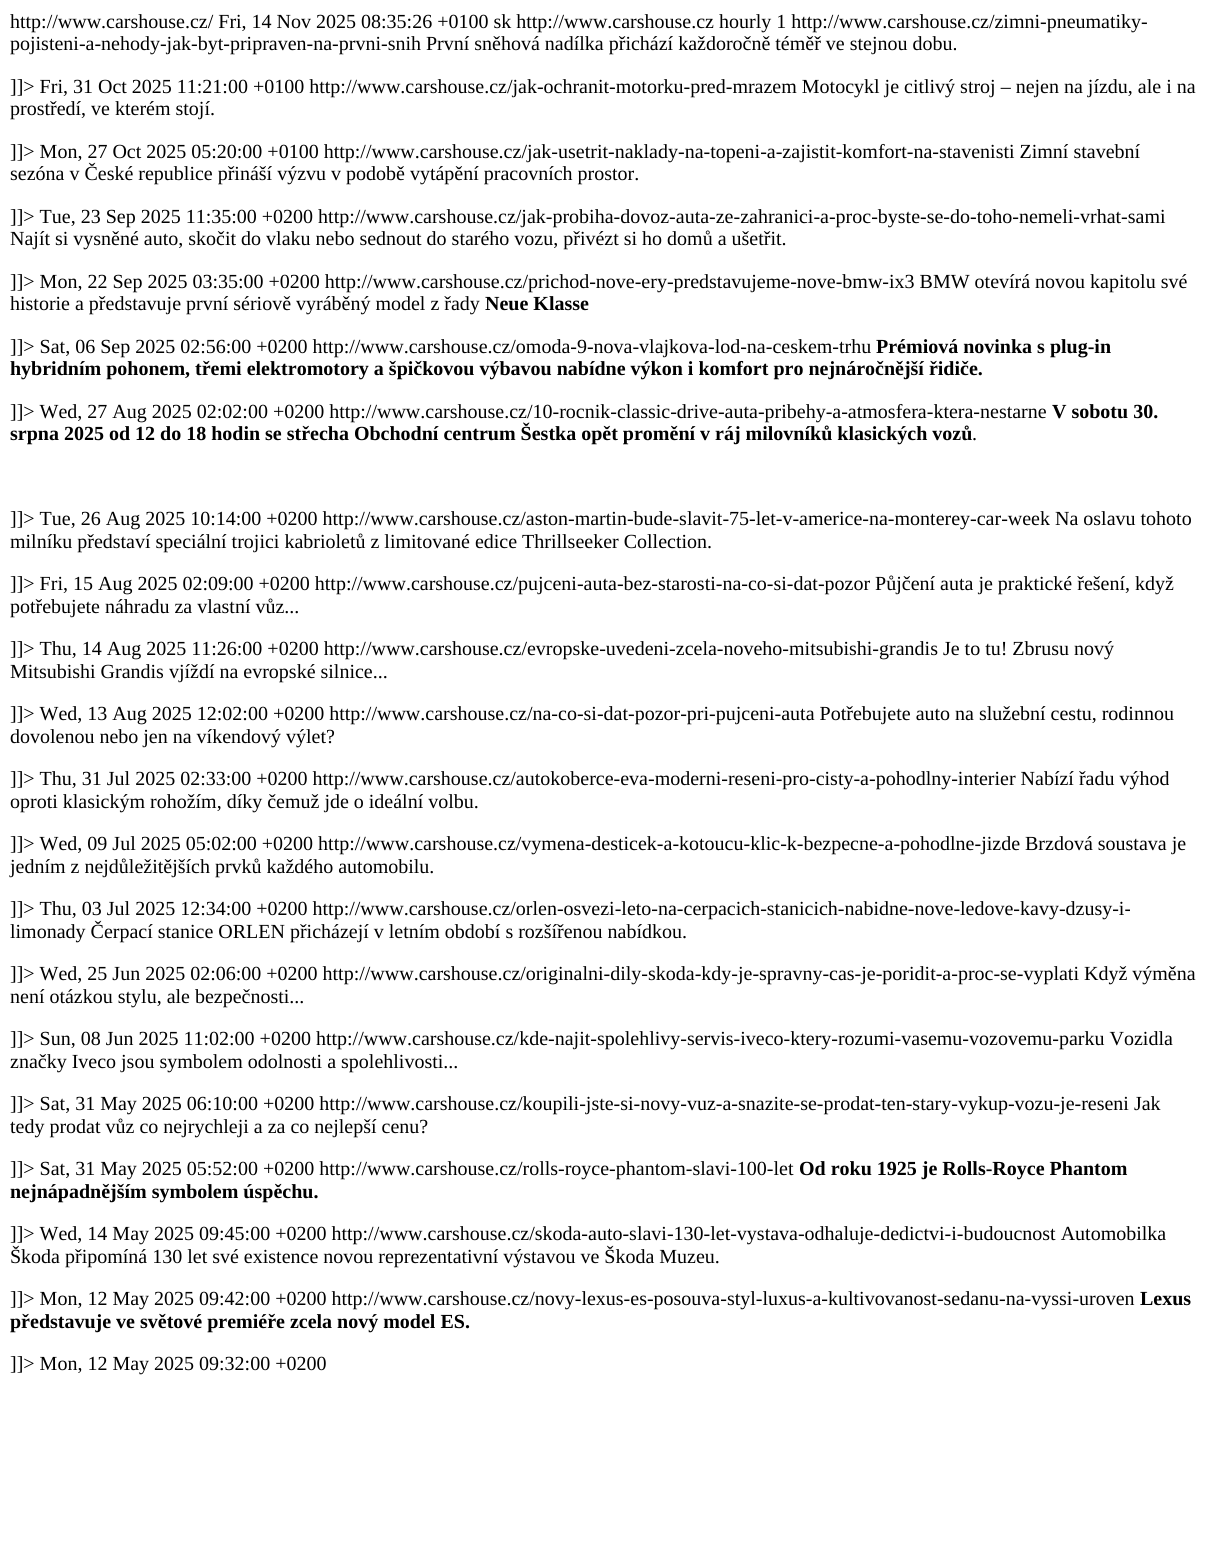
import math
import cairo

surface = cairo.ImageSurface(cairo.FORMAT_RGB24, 1207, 1552)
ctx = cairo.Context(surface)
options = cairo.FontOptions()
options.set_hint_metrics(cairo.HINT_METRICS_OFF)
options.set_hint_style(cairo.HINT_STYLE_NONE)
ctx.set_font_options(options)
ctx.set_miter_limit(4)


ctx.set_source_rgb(1, 1, 1)
ctx.paint()
ctx.select_font_face("Liberation Serif")
ctx.set_font_size(20)
ctx.set_source_rgb(0, 0, 0)
ctx.move_to(10, 28)
ctx.show_text("http://www.carshouse.cz/ Fri, 14 Nov 2025 08:35:26 +0100 sk http://www.carshouse.cz hourly 1 http://www.carshouse.cz/zimni-pneumatiky-")
ctx.move_to(10, 50)
ctx.show_text("pojisteni-a-nehody-jak-byt-pripraven-na-prvni-snih První sněhová nadílka přichází každoročně téměř ve stejnou dobu.")
ctx.move_to(10, 93)
ctx.show_text("]]> Fri, 31 Oct 2025 11:21:00 +0100 http://www.carshouse.cz/jak-ochranit-motorku-pred-mrazem Motocykl je citlivý stroj – nejen na jízdu, ale i na")
ctx.move_to(10, 115)
ctx.show_text("prostředí, ve kterém stojí.")
ctx.move_to(10, 158)
ctx.show_text("]]> Mon, 27 Oct 2025 05:20:00 +0100 http://www.carshouse.cz/jak-usetrit-naklady-na-topeni-a-zajistit-komfort-na-stavenisti Zimní stavební")
ctx.move_to(10, 180)
ctx.show_text("sezóna v České republice přináší výzvu v podobě vytápění pracovních prostor.")
ctx.move_to(10, 223)
ctx.show_text("]]> Tue, 23 Sep 2025 11:35:00 +0200 http://www.carshouse.cz/jak-probiha-dovoz-auta-ze-zahranici-a-proc-byste-se-do-toho-nemeli-vrhat-sami")
ctx.move_to(10, 245)
ctx.show_text("Najít si vysněné auto, skočit do vlaku nebo sednout do starého vozu, přivézt si ho domů a ušetřit.")
ctx.move_to(10, 288)
ctx.show_text("]]> Mon, 22 Sep 2025 03:35:00 +0200 http://www.carshouse.cz/prichod-nove-ery-predstavujeme-nove-bmw-ix3 BMW otevírá novou kapitolu své")
ctx.move_to(10, 310)
ctx.show_text("historie a představuje první sériově vyráběný model z řady")
ctx.select_font_face("Liberation Serif", cairo.FONT_SLANT_NORMAL, cairo.FONT_WEIGHT_BOLD)
ctx.move_to(485, 310)
ctx.show_text("Neue Klasse")
ctx.select_font_face("Liberation Serif")
ctx.move_to(10, 353)
ctx.show_text("]]> Sat, 06 Sep 2025 02:56:00 +0200 http://www.carshouse.cz/omoda-9-nova-vlajkova-lod-na-ceskem-trhu")
ctx.select_font_face("Liberation Serif", cairo.FONT_SLANT_NORMAL, cairo.FONT_WEIGHT_BOLD)
ctx.move_to(876, 353)
ctx.show_text("Prémiová novinka s plug-in")
ctx.move_to(10, 375)
ctx.show_text("hybridním pohonem, třemi elektromotory a špičkovou výbavou nabídne výkon i komfort pro nejnáročnější řidiče.")
ctx.select_font_face("Liberation Serif")
ctx.move_to(10, 418)
ctx.show_text("]]> Wed, 27 Aug 2025 02:02:00 +0200 http://www.carshouse.cz/10-rocnik-classic-drive-auta-pribehy-a-atmosfera-ktera-nestarne")
ctx.select_font_face("Liberation Serif", cairo.FONT_SLANT_NORMAL, cairo.FONT_WEIGHT_BOLD)
ctx.move_to(1052, 418)
ctx.show_text("V sobotu 30.")
ctx.move_to(10, 440)
ctx.show_text("srpna 2025 od 12 do 18 hodin se střecha Obchodní centrum Šestka opět promění v ráj milovníků klasických vozů")
ctx.select_font_face("Liberation Serif")
ctx.move_to(972, 440)
ctx.show_text(".")
ctx.move_to(10, 525)
ctx.show_text("]]> Tue, 26 Aug 2025 10:14:00 +0200 http://www.carshouse.cz/aston-martin-bude-slavit-75-let-v-americe-na-monterey-car-week Na oslavu tohoto")
ctx.move_to(10, 548)
ctx.show_text("milníku představí speciální trojici kabrioletů z limitované edice Thrillseeker Collection.")
ctx.move_to(10, 590)
ctx.show_text("]]> Fri, 15 Aug 2025 02:09:00 +0200 http://www.carshouse.cz/pujceni-auta-bez-starosti-na-co-si-dat-pozor Půjčení auta je praktické řešení, když")
ctx.move_to(10, 613)
ctx.show_text("potřebujete náhradu za vlastní vůz...")
ctx.move_to(10, 655)
ctx.show_text("]]> Thu, 14 Aug 2025 11:26:00 +0200 http://www.carshouse.cz/evropske-uvedeni-zcela-noveho-mitsubishi-grandis Je to tu! Zbrusu nový")
ctx.move_to(10, 678)
ctx.show_text("Mitsubishi Grandis vjíždí na evropské silnice...")
ctx.move_to(10, 720)
ctx.show_text("]]> Wed, 13 Aug 2025 12:02:00 +0200 http://www.carshouse.cz/na-co-si-dat-pozor-pri-pujceni-auta Potřebujete auto na služební cestu, rodinnou")
ctx.move_to(10, 743)
ctx.show_text("dovolenou nebo jen na víkendový výlet?")
ctx.move_to(10, 785)
ctx.show_text("]]> Thu, 31 Jul 2025 02:33:00 +0200 http://www.carshouse.cz/autokoberce-eva-moderni-reseni-pro-cisty-a-pohodlny-interier Nabízí řadu výhod")
ctx.move_to(10, 808)
ctx.show_text("oproti klasickým rohožím, díky čemuž jde o ideální volbu.")
ctx.move_to(10, 850)
ctx.show_text("]]> Wed, 09 Jul 2025 05:02:00 +0200 http://www.carshouse.cz/vymena-desticek-a-kotoucu-klic-k-bezpecne-a-pohodlne-jizde Brzdová soustava je")
ctx.move_to(10, 873)
ctx.show_text("jedním z nejdůležitějších prvků každého automobilu.")
ctx.move_to(10, 915)
ctx.show_text("]]> Thu, 03 Jul 2025 12:34:00 +0200 http://www.carshouse.cz/orlen-osvezi-leto-na-cerpacich-stanicich-nabidne-nove-ledove-kavy-dzusy-i-")
ctx.move_to(10, 938)
ctx.show_text("limonady Čerpací stanice ORLEN přicházejí v letním období s rozšířenou nabídkou.")
ctx.move_to(10, 980)
ctx.show_text("]]> Wed, 25 Jun 2025 02:06:00 +0200 http://www.carshouse.cz/originalni-dily-skoda-kdy-je-spravny-cas-je-poridit-a-proc-se-vyplati Když výměna")
ctx.move_to(10, 1003)
ctx.show_text("není otázkou stylu, ale bezpečnosti...")
ctx.move_to(10, 1045)
ctx.show_text("]]> Sun, 08 Jun 2025 11:02:00 +0200 http://www.carshouse.cz/kde-najit-spolehlivy-servis-iveco-ktery-rozumi-vasemu-vozovemu-parku Vozidla")
ctx.move_to(10, 1068)
ctx.show_text("značky Iveco jsou symbolem odolnosti a spolehlivosti...")
ctx.move_to(10, 1110)
ctx.show_text("]]> Sat, 31 May 2025 06:10:00 +0200 http://www.carshouse.cz/koupili-jste-si-novy-vuz-a-snazite-se-prodat-ten-stary-vykup-vozu-je-reseni Jak")
ctx.move_to(10, 1133)
ctx.show_text("tedy prodat vůz co nejrychleji a za co nejlepší cenu?")
ctx.move_to(10, 1175)
ctx.show_text("]]> Sat, 31 May 2025 05:52:00 +0200 http://www.carshouse.cz/rolls-royce-phantom-slavi-100-let")
ctx.select_font_face("Liberation Serif", cairo.FONT_SLANT_NORMAL, cairo.FONT_WEIGHT_BOLD)
ctx.move_to(799, 1175)
ctx.show_text("Od roku 1925 je Rolls-Royce Phantom")
ctx.move_to(10, 1198)
ctx.show_text("nejnápadnějším symbolem úspěchu.")
ctx.select_font_face("Liberation Serif")
ctx.move_to(10, 1240)
ctx.show_text("]]> Wed, 14 May 2025 09:45:00 +0200 http://www.carshouse.cz/skoda-auto-slavi-130-let-vystava-odhaluje-dedictvi-i-budoucnost Automobilka")
ctx.move_to(10, 1263)
ctx.show_text("Škoda připomíná 130 let své existence novou reprezentativní výstavou ve Škoda Muzeu.")
ctx.move_to(10, 1305)
ctx.show_text("]]> Mon, 12 May 2025 09:42:00 +0200 http://www.carshouse.cz/novy-lexus-es-posouva-styl-luxus-a-kultivovanost-sedanu-na-vyssi-uroven")
ctx.select_font_face("Liberation Serif", cairo.FONT_SLANT_NORMAL, cairo.FONT_WEIGHT_BOLD)
ctx.move_to(1140, 1305)
ctx.show_text("Lexus")
ctx.move_to(10, 1328)
ctx.show_text("představuje ve světové premiéře zcela nový model ES.")
ctx.select_font_face("Liberation Serif")
ctx.move_to(10, 1370)
ctx.show_text("]]> Mon, 12 May 2025 09:32:00 +0200")
surface.write_to_png("page.png")
